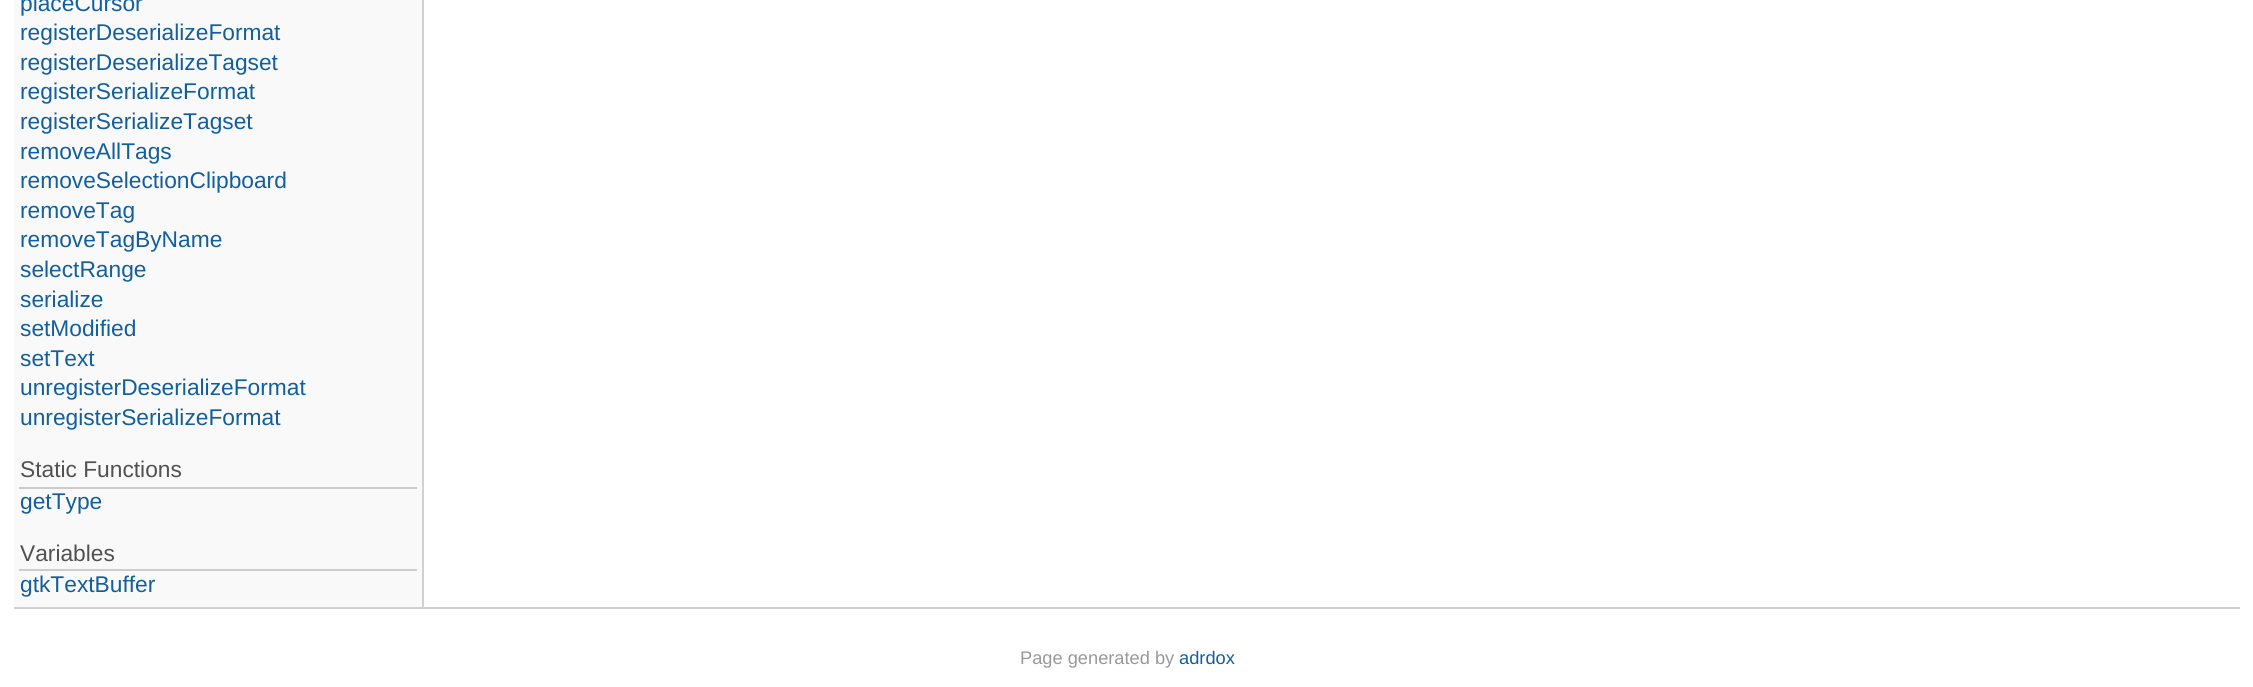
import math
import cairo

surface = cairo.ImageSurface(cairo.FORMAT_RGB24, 2253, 687)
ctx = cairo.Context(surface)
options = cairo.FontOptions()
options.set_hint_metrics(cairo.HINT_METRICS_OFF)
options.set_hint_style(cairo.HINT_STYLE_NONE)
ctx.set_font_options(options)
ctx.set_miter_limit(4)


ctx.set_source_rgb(1, 1, 1)
ctx.paint()
ctx.set_source_rgb(0.973, 0.973, 0.973)
ctx.rectangle(14, 0, 408, 607)
ctx.fill()
ctx.set_source_rgb(0.82, 0.82, 0.82)
ctx.rectangle(422, 0, 2, 607)
ctx.fill()
ctx.select_font_face("Liberation Sans")
ctx.set_font_size(22.75)
ctx.set_source_rgb(0.078, 0.369, 0.616)
ctx.move_to(20, 11)
ctx.show_text("placeCursor")
ctx.move_to(20, 40)
ctx.show_text("registerDeserializeFormat")
ctx.move_to(20, 70)
ctx.show_text("registerDeserializeTagset")
ctx.move_to(20, 99)
ctx.show_text("registerSerializeFormat")
ctx.move_to(20, 129)
ctx.show_text("registerSerializeTagset")
ctx.move_to(20, 159)
ctx.show_text("removeAllTags")
ctx.move_to(20, 188)
ctx.show_text("removeSelectionClipboard")
ctx.move_to(20, 218)
ctx.show_text("removeTag")
ctx.move_to(20, 247)
ctx.show_text("removeTagByName")
ctx.move_to(20, 277)
ctx.show_text("selectRange")
ctx.move_to(20, 307)
ctx.show_text("serialize")
ctx.move_to(20, 336)
ctx.show_text("setModified")
ctx.move_to(20, 366)
ctx.show_text("setText")
ctx.move_to(20, 395)
ctx.show_text("unregisterDeserializeFormat")
ctx.move_to(20, 425)
ctx.show_text("unregisterSerializeFormat")
ctx.set_source_rgb(0.8, 0.8, 0.8)
ctx.rectangle(19, 487, 398, 2)
ctx.fill()
ctx.set_source_rgb(0.318, 0.318, 0.318)
ctx.move_to(20, 477)
ctx.show_text("Static Functions")
ctx.set_source_rgb(0.078, 0.369, 0.616)
ctx.move_to(20, 509)
ctx.show_text("getType")
ctx.set_source_rgb(0.8, 0.8, 0.8)
ctx.rectangle(19, 569, 398, 2)
ctx.fill()
ctx.set_source_rgb(0.318, 0.318, 0.318)
ctx.move_to(20, 561)
ctx.show_text("Variables")
ctx.set_source_rgb(0.078, 0.369, 0.616)
ctx.move_to(20, 592)
ctx.show_text("gtkTextBuffer")
ctx.set_source_rgb(0.82, 0.82, 0.82)
ctx.rectangle(14, 607, 2226, 2)
ctx.fill()
ctx.set_font_size(18.25)
ctx.set_source_rgb(0.6, 0.6, 0.6)
ctx.move_to(1020, 664)
ctx.show_text("Page generated by")
ctx.set_source_rgb(0.078, 0.369, 0.616)
ctx.move_to(1179, 664)
ctx.show_text("adrdox")
surface.write_to_png("page.png")
